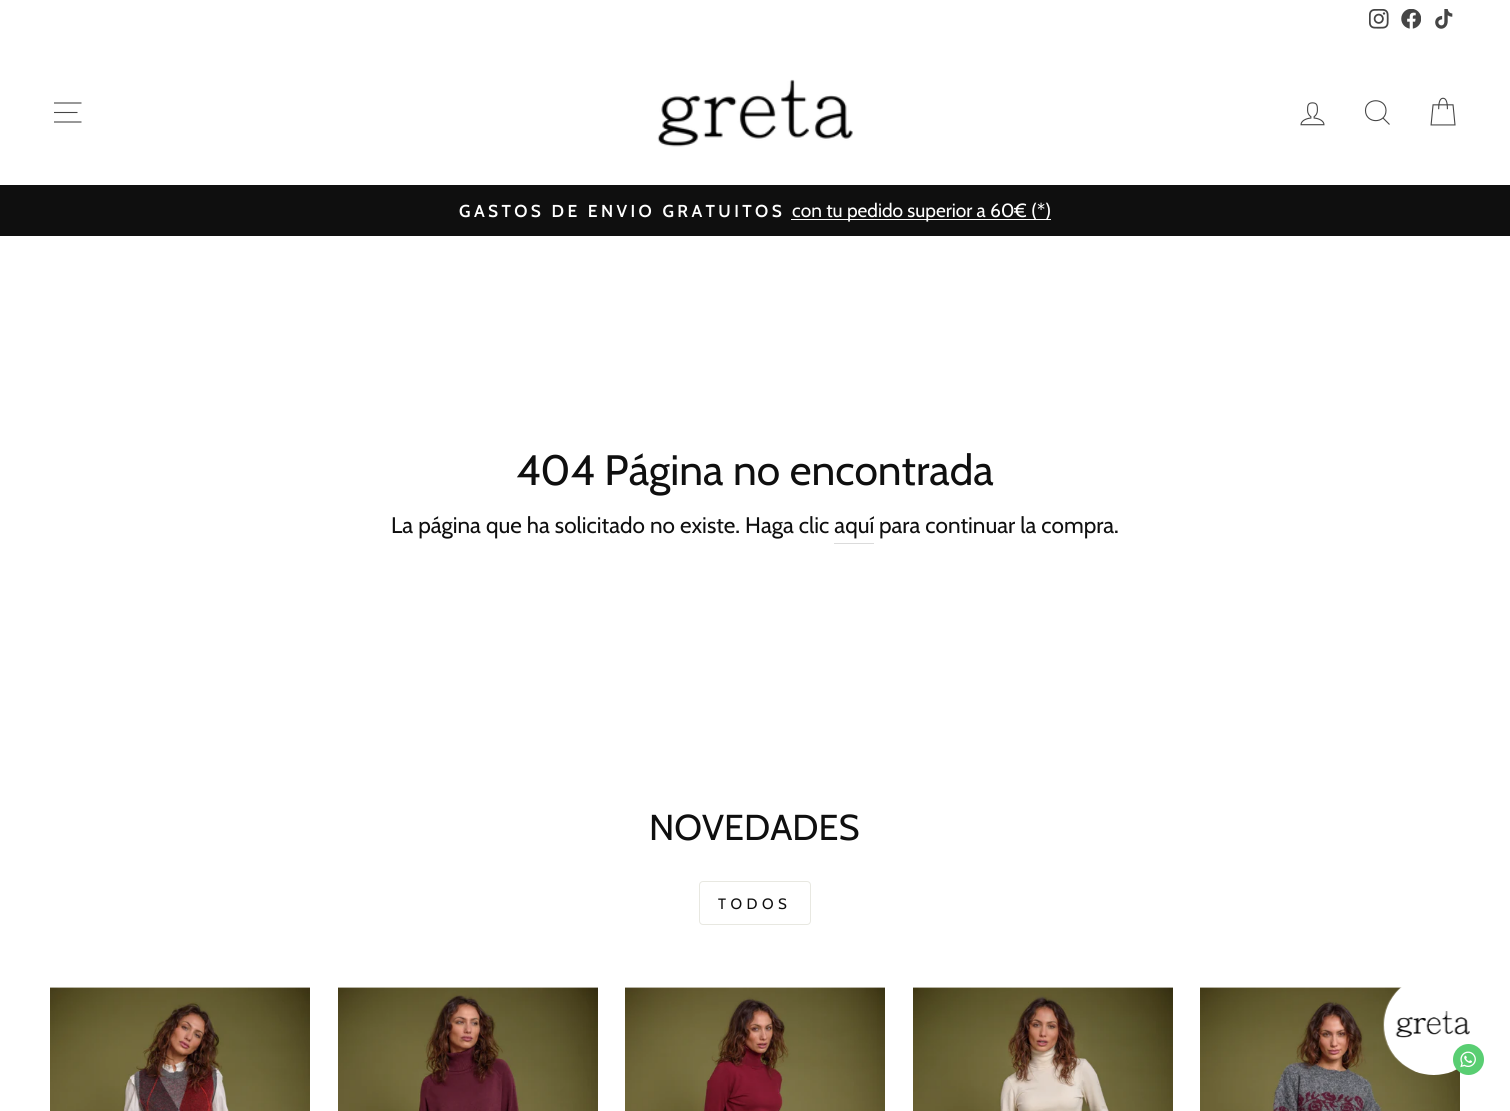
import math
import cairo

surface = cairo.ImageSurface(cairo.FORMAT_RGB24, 1510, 1111)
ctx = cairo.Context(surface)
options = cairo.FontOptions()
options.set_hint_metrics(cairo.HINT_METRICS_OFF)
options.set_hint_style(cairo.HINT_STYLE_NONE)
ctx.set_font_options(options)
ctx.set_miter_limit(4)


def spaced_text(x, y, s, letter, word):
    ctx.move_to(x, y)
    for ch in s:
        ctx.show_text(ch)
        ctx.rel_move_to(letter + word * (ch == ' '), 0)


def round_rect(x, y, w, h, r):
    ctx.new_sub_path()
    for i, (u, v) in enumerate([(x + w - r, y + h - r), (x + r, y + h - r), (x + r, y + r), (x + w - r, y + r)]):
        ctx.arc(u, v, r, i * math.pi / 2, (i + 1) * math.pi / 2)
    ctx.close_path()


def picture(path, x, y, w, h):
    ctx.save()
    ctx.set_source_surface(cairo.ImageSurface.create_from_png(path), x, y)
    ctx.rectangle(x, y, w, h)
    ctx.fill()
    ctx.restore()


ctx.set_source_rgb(1, 1, 1)
ctx.paint()
picture("img1.png", 1369, 9, 20, 20)
picture("img2.png", 1401, 9, 20, 20)
picture("img3.png", 1435, 9, 18, 20)
ctx.new_path()
ctx.move_to(54, 103)
ctx.line_to(81.5, 103)
ctx.move_to(54, 112.5)
ctx.line_to(77.5, 112.5)
ctx.move_to(54, 122)
ctx.line_to(81.5, 122)
ctx.set_source_rgb(0.271, 0.271, 0.271)
ctx.set_line_width(1.1)
ctx.stroke()
picture("img4.png", 657, 79, 196, 68)
picture("img5.png", 1300, 102, 25, 24)
ctx.new_path()
ctx.move_to(1386, 110.5)
ctx.curve_to(1386, 124, 1365.5, 124, 1365.5, 110.5)
ctx.curve_to(1365.5, 97.5, 1386, 97.5, 1386, 110.5)
ctx.close_path()
ctx.move_to(1389.5, 124.5)
ctx.line_to(1383, 118)
ctx.stroke()
picture("img6.png", 1430, 97, 26, 29)
ctx.set_source_rgb(0.059, 0.059, 0.059)
ctx.rectangle(0, 185, 1510, 51)
ctx.fill()
ctx.select_font_face("Cabin SemiBold")
ctx.set_font_size(17.25)
ctx.set_source_rgb(1, 1, 1)
spaced_text(459, 217, "GASTOS DE ENVIO GRATUITOS", 3.4, 0)
ctx.rectangle(791, 219, 260, 1)
ctx.fill()
ctx.select_font_face("Cabin")
ctx.set_font_size(19.1)
ctx.move_to(792, 217)
ctx.show_text("con tu pedido superior a 60€ (*)")
ctx.set_font_size(42.5)
ctx.set_source_rgb(0.059, 0.059, 0.059)
ctx.move_to(516, 485)
ctx.show_text("404 Página no encontrada")
ctx.set_font_size(22.5)
ctx.move_to(391, 533)
ctx.show_text("La página que ha solicitado no existe. Haga clic aquí")
ctx.move_to(879, 533)
ctx.show_text("para continuar la compra.")
ctx.set_source_rgb(0.859, 0.859, 0.859)
ctx.rectangle(834, 543, 40, 1)
ctx.fill()
ctx.set_font_size(36)
ctx.set_source_rgb(0.059, 0.059, 0.059)
ctx.move_to(649, 840)
ctx.show_text("NOVEDADES")
round_rect(699.5, 881.5, 111, 43, 3.5)
ctx.set_source_rgb(0.91, 0.91, 0.882)
ctx.set_line_width(1)
ctx.stroke()
ctx.set_font_size(15)
ctx.set_source_rgb(0.059, 0.059, 0.059)
spaced_text(718, 909, "TODOS", 4.5, 0)
picture("img7.png", 50, 987, 260, 124)
picture("img8.png", 338, 987, 260, 124)
picture("img9.png", 625, 987, 260, 124)
picture("img10.png", 913, 987, 260, 124)
picture("img11.png", 1200, 987, 260, 124)
picture("img12.png", 1383, 987, 87, 88)
ctx.set_source_rgb(0.349, 0.808, 0.447)
ctx.arc(1468.5, 1059.5, 15.5, 0, 2 * math.pi)
ctx.fill()
picture("img13.png", 1460, 1051, 16, 17)
surface.write_to_png("page.png")
